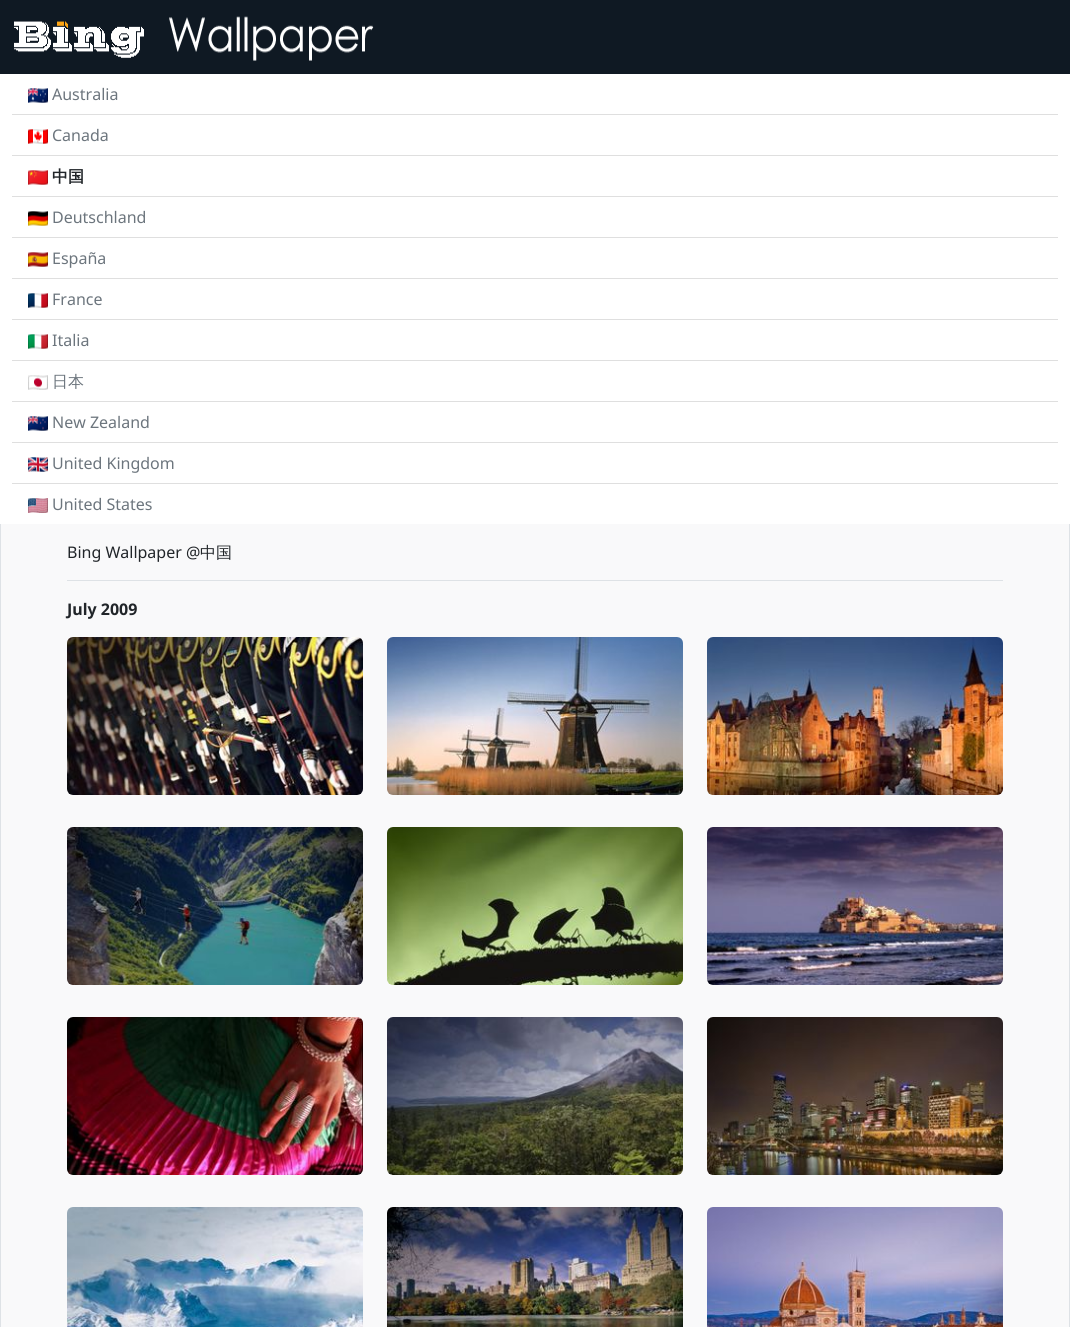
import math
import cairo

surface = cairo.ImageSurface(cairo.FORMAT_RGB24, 1070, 1327)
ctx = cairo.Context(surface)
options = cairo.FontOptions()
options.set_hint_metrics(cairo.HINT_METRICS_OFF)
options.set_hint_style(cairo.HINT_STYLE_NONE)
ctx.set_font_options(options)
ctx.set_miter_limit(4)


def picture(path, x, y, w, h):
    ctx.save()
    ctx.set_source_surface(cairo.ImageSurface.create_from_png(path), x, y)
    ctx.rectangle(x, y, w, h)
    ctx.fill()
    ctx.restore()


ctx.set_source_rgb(1, 1, 1)
ctx.paint()
ctx.set_source_rgb(0.059, 0.098, 0.137)
ctx.rectangle(0, 0, 1070, 74)
ctx.fill()
picture("img1.png", 14, 16, 360, 45)
ctx.set_source_rgb(0.875, 0.875, 0.875)
ctx.rectangle(12, 114, 1046, 1)
ctx.fill()
picture("img2.png", 28, 88, 20, 15)
ctx.select_font_face("Noto Sans")
ctx.set_font_size(16)
ctx.set_source_rgb(0.424, 0.459, 0.49)
ctx.move_to(52, 100)
ctx.show_text("Australia")
ctx.set_source_rgb(0.875, 0.875, 0.875)
ctx.rectangle(12, 155, 1046, 1)
ctx.fill()
picture("img3.png", 28, 129, 20, 15)
ctx.set_source_rgb(0.424, 0.459, 0.49)
ctx.move_to(52, 141)
ctx.show_text("Canada")
ctx.set_source_rgb(0.875, 0.875, 0.875)
ctx.rectangle(12, 196, 1046, 1)
ctx.fill()
picture("img4.png", 28, 170, 20, 15)
ctx.select_font_face("WenQuanYi Zen Hei", cairo.FONT_SLANT_NORMAL, cairo.FONT_WEIGHT_BOLD)
ctx.set_source_rgb(0.129, 0.145, 0.161)
ctx.move_to(52, 182)
ctx.show_text("中国")
ctx.set_source_rgb(0.875, 0.875, 0.875)
ctx.rectangle(12, 237, 1046, 1)
ctx.fill()
picture("img5.png", 28, 211, 20, 15)
ctx.select_font_face("Noto Sans")
ctx.set_source_rgb(0.424, 0.459, 0.49)
ctx.move_to(52, 223)
ctx.show_text("Deutschland")
ctx.set_source_rgb(0.875, 0.875, 0.875)
ctx.rectangle(12, 278, 1046, 1)
ctx.fill()
picture("img6.png", 28, 252, 20, 15)
ctx.set_source_rgb(0.424, 0.459, 0.49)
ctx.move_to(52, 264)
ctx.show_text("España")
ctx.set_source_rgb(0.875, 0.875, 0.875)
ctx.rectangle(12, 319, 1046, 1)
ctx.fill()
picture("img7.png", 28, 293, 20, 15)
ctx.set_source_rgb(0.424, 0.459, 0.49)
ctx.move_to(52, 305)
ctx.show_text("France")
ctx.set_source_rgb(0.875, 0.875, 0.875)
ctx.rectangle(12, 360, 1046, 1)
ctx.fill()
picture("img8.png", 28, 334, 20, 15)
ctx.set_source_rgb(0.424, 0.459, 0.49)
ctx.move_to(52, 346)
ctx.show_text("Italia")
ctx.set_source_rgb(0.875, 0.875, 0.875)
ctx.rectangle(12, 401, 1046, 1)
ctx.fill()
picture("img9.png", 28, 375, 20, 15)
ctx.select_font_face("WenQuanYi Zen Hei Medium")
ctx.set_source_rgb(0.424, 0.459, 0.49)
ctx.move_to(52, 387)
ctx.show_text("日本")
ctx.set_source_rgb(0.875, 0.875, 0.875)
ctx.rectangle(12, 442, 1046, 1)
ctx.fill()
picture("img10.png", 28, 416, 20, 15)
ctx.select_font_face("Noto Sans")
ctx.set_source_rgb(0.424, 0.459, 0.49)
ctx.move_to(52, 428)
ctx.show_text("New Zealand")
ctx.set_source_rgb(0.875, 0.875, 0.875)
ctx.rectangle(12, 483, 1046, 1)
ctx.fill()
picture("img11.png", 28, 457, 20, 15)
ctx.set_source_rgb(0.424, 0.459, 0.49)
ctx.move_to(52, 469)
ctx.show_text("United Kingdom")
picture("img12.png", 28, 498, 20, 15)
ctx.move_to(52, 510)
ctx.show_text("United States")
ctx.set_source_rgb(0.973, 0.976, 0.98)
ctx.rectangle(1, 524, 1068, 803)
ctx.fill()
ctx.set_source_rgb(0.871, 0.886, 0.902)
ctx.rectangle(1069, 524, 1, 803)
ctx.fill()
ctx.rectangle(0, 524, 1, 803)
ctx.fill()
ctx.set_source_rgb(0.129, 0.145, 0.161)
ctx.move_to(67, 558)
ctx.show_text("Bing Wallpaper @")
ctx.select_font_face("WenQuanYi Zen Hei Medium")
ctx.move_to(200, 558)
ctx.show_text("中国")
ctx.set_source_rgb(0.871, 0.886, 0.902)
ctx.rectangle(67, 580, 936, 1)
ctx.fill()
ctx.select_font_face("Noto Sans", cairo.FONT_SLANT_NORMAL, cairo.FONT_WEIGHT_BOLD)
ctx.set_source_rgb(0.129, 0.145, 0.161)
ctx.move_to(67, 615)
ctx.show_text("July 2009")
picture("img13.png", 67, 637, 296, 158)
picture("img14.png", 387, 637, 296, 158)
picture("img15.png", 707, 637, 296, 158)
picture("img16.png", 67, 827, 296, 158)
picture("img17.png", 387, 827, 296, 158)
picture("img18.png", 707, 827, 296, 158)
picture("img19.png", 67, 1017, 296, 158)
picture("img20.png", 387, 1017, 296, 158)
picture("img21.png", 707, 1017, 296, 158)
picture("img22.png", 67, 1207, 296, 120)
picture("img23.png", 387, 1207, 296, 120)
picture("img24.png", 707, 1207, 296, 120)
surface.write_to_png("page.png")
